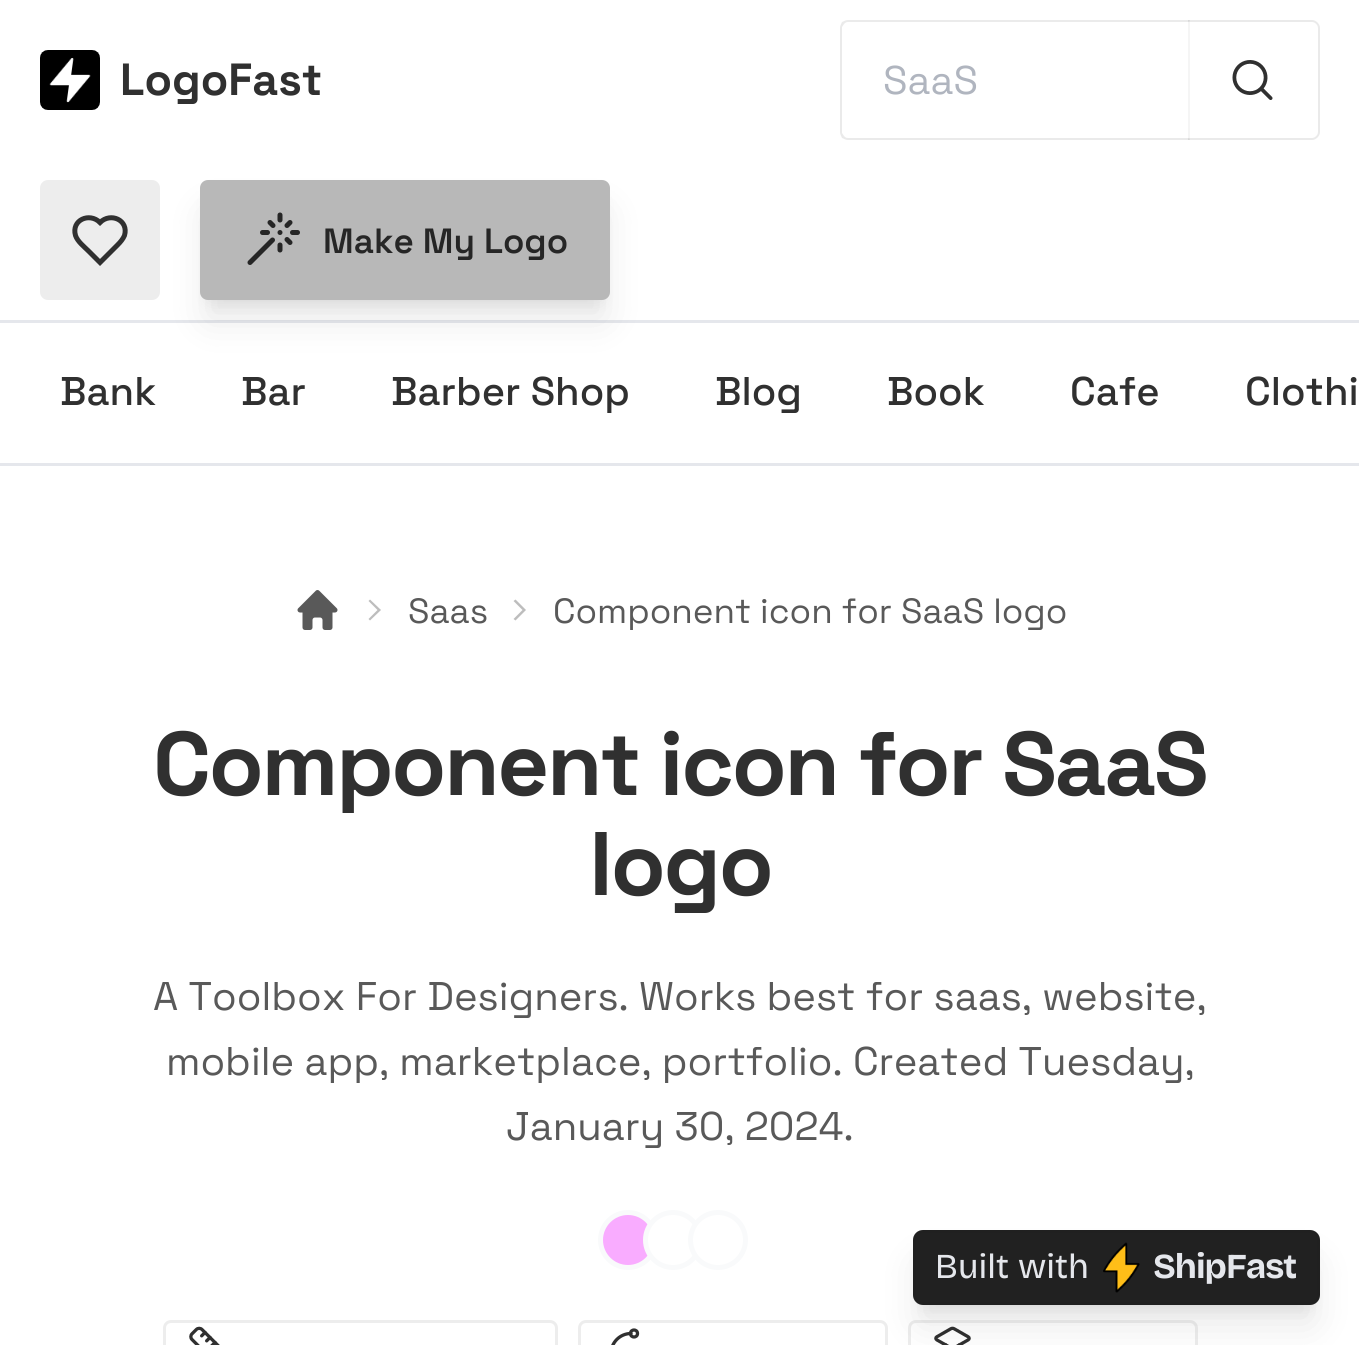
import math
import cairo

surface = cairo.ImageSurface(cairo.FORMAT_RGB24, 1359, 1345)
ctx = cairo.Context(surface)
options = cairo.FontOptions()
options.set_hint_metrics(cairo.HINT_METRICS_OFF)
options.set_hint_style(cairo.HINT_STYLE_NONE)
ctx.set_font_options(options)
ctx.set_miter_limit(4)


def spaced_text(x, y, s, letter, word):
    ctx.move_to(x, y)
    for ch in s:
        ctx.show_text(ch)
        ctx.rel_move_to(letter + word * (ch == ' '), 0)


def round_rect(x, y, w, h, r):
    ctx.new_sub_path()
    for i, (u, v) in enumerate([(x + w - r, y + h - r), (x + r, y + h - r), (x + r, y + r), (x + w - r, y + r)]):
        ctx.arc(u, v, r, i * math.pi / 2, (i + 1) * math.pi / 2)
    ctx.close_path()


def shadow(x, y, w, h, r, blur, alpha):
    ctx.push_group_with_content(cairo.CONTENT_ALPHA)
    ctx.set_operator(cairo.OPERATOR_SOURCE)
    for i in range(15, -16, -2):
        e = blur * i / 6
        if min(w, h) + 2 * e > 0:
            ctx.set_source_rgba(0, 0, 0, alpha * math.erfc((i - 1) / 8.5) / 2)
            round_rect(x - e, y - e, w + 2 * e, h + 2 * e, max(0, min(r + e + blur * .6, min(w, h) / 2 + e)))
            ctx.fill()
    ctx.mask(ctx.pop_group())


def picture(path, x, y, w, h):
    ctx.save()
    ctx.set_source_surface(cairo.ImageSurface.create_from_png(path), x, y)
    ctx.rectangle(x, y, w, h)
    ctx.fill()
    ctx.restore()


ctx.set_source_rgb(1, 1, 1)
ctx.paint()
ctx.set_source_rgb(0.898, 0.906, 0.922)
ctx.rectangle(0, 320, 1359, 3)
ctx.fill()
picture("img1.png", 40, 50, 60, 60)
ctx.select_font_face("Space Grotesk", cairo.FONT_SLANT_NORMAL, cairo.FONT_WEIGHT_BOLD)
ctx.set_font_size(45)
ctx.set_source_rgb(0.188, 0.188, 0.188)
ctx.move_to(120, 95)
ctx.show_text("LogoFast")
ctx.set_source_rgb(0.918, 0.918, 0.918)
ctx.new_path()
ctx.move_to(848, 20)
ctx.curve_to(846, 20, 844, 21, 842, 22)
ctx.line_to(844, 24)
ctx.curve_to(845, 23, 846, 22, 848, 22)
ctx.line_to(1188, 22)
ctx.line_to(1190, 20)
ctx.close_path()
ctx.fill()
ctx.set_source_rgba(0.188, 0.188, 0.188, 0.05)
ctx.new_path()
ctx.move_to(1190, 20)
ctx.line_to(1188, 22)
ctx.line_to(1188, 138)
ctx.line_to(1190, 140)
ctx.close_path()
ctx.fill()
ctx.set_source_rgba(0.188, 0.188, 0.188, 0.1)
ctx.new_path()
ctx.move_to(1190, 140)
ctx.line_to(1188, 138)
ctx.line_to(848, 138)
ctx.curve_to(846, 138, 845, 137, 844, 136)
ctx.line_to(842, 138)
ctx.curve_to(844, 139, 846, 140, 848, 140)
ctx.close_path()
ctx.fill()
ctx.new_path()
ctx.move_to(840, 28)
ctx.line_to(840, 132)
ctx.curve_to(840, 134, 841, 136, 842, 138)
ctx.line_to(844, 136)
ctx.line_to(842, 133)
ctx.line_to(842, 27)
ctx.line_to(844, 24)
ctx.line_to(842, 22)
ctx.curve_to(841, 24, 840, 26, 840, 28)
ctx.close_path()
ctx.fill()
ctx.select_font_face("Space Grotesk")
ctx.set_font_size(40)
ctx.set_source_rgb(0.69, 0.71, 0.749)
ctx.move_to(883, 94)
ctx.show_text("SaaS")
ctx.set_source_rgba(0.188, 0.188, 0.188, 0.1)
ctx.set_fill_rule(cairo.FILL_RULE_EVEN_ODD)
ctx.new_path()
ctx.move_to(1188, 20)
ctx.line_to(1312, 20)
ctx.curve_to(1316, 20, 1320, 24, 1320, 28)
ctx.line_to(1320, 132)
ctx.curve_to(1320, 136, 1316, 140, 1312, 140)
ctx.line_to(1188, 140)
ctx.close_path()
ctx.move_to(1188, 22)
ctx.line_to(1312, 22)
ctx.curve_to(1315, 22, 1318, 25, 1318, 28)
ctx.line_to(1318, 132)
ctx.curve_to(1318, 135, 1315, 138, 1312, 138)
ctx.line_to(1188, 138)
ctx.close_path()
ctx.fill()
picture("img2.png", 1232, 60, 41, 40)
ctx.set_source_rgb(0, 0, 0)
shadow(208, 213, 395, 105, 0, 19, 0.1)
ctx.set_source_rgb(0.929, 0.929, 0.929)
round_rect(41.5, 181.5, 117, 117, 6.5)
ctx.fill_preserve()
ctx.set_line_width(3)
ctx.stroke()
ctx.new_path()
ctx.move_to(117.5, 245)
ctx.curve_to(120.5, 242, 123, 239, 124.5, 235.5)
ctx.curve_to(129, 220, 110.5, 212, 100, 222.5)
ctx.curve_to(89.5, 212, 71, 220, 75.5, 235.5)
ctx.curve_to(77.5, 241.5, 84, 246.5, 88.5, 251)
ctx.line_to(100, 262.5)
ctx.close_path()
ctx.set_source_rgb(0.188, 0.188, 0.188)
ctx.set_line_width(5)
ctx.stroke()
ctx.set_source_rgb(0, 0, 0)
shadow(210, 200, 390, 100, 0, 7.5, 0.1)
ctx.set_source_rgb(0.722, 0.722, 0.722)
round_rect(201.5, 181.5, 407, 117, 6.5)
ctx.fill_preserve()
ctx.set_line_width(3)
ctx.stroke()
picture("img3.png", 247, 212, 53, 53)
ctx.select_font_face("Space Grotesk SemiBold")
ctx.set_font_size(35)
ctx.set_source_rgb(0.149, 0.149, 0.149)
ctx.move_to(323, 253)
ctx.show_text("Make My Logo")
ctx.set_source_rgb(0.898, 0.906, 0.922)
ctx.rectangle(0, 463, 1359, 3)
ctx.fill()
ctx.select_font_face("Space Grotesk Medium")
ctx.set_font_size(40)
ctx.set_source_rgb(0.188, 0.188, 0.188)
ctx.move_to(60, 405)
ctx.show_text("Bank")
ctx.move_to(241, 405)
ctx.show_text("Bar")
ctx.move_to(391, 405)
ctx.show_text("Barber Shop")
ctx.move_to(715, 405)
ctx.show_text("Blog")
ctx.move_to(887, 405)
ctx.show_text("Book")
ctx.move_to(1070, 405)
ctx.show_text("Cafe")
ctx.move_to(1245, 405)
ctx.show_text("Clothi")
picture("img4.png", 297, 590, 41, 40)
ctx.set_source_rgb(0.741, 0.741, 0.741)
ctx.set_fill_rule(cairo.FILL_RULE_WINDING)
ctx.new_path()
ctx.move_to(370, 599.5)
ctx.line_to(381, 610)
ctx.line_to(377.5, 610)
ctx.line_to(368.5, 601)
ctx.close_path()
ctx.move_to(381, 610)
ctx.line_to(370, 620.5)
ctx.line_to(368.5, 619)
ctx.line_to(377.5, 610)
ctx.close_path()
ctx.fill()
ctx.select_font_face("Space Grotesk")
ctx.set_font_size(35)
ctx.set_source_rgb(0.349, 0.349, 0.349)
ctx.move_to(408, 623)
ctx.show_text("Saas")
ctx.set_source_rgb(0.741, 0.741, 0.741)
ctx.new_path()
ctx.move_to(515.5, 599.5)
ctx.line_to(526, 610)
ctx.line_to(522.5, 610)
ctx.line_to(513.5, 601)
ctx.close_path()
ctx.move_to(526, 610)
ctx.line_to(515.5, 620.5)
ctx.line_to(513.5, 619)
ctx.line_to(522.5, 610)
ctx.close_path()
ctx.fill()
ctx.set_source_rgb(0.349, 0.349, 0.349)
ctx.move_to(553, 623)
ctx.show_text("Component icon for SaaS logo")
ctx.select_font_face("Space Grotesk", cairo.FONT_SLANT_NORMAL, cairo.FONT_WEIGHT_BOLD)
ctx.set_font_size(90)
ctx.set_source_rgb(0.188, 0.188, 0.188)
spaced_text(153, 795, "Component icon for SaaS", -2.25, 0)
spaced_text(589, 895, "logo", -2.25, 0)
ctx.select_font_face("Space Grotesk")
ctx.set_font_size(40)
ctx.set_source_rgb(0.349, 0.349, 0.349)
ctx.move_to(153, 1010)
ctx.show_text("A Toolbox For Designers. Works best for saas, website,")
ctx.move_to(166, 1075)
ctx.show_text("mobile app, marketplace, portfolio. Created Tuesday,")
ctx.move_to(506, 1140)
ctx.show_text("January 30, 2024.")
ctx.set_source_rgb(0.973, 0.675, 1)
ctx.new_path()
ctx.arc(628, 1240, 27.5, 0, 2 * math.pi)
ctx.fill_preserve()
ctx.set_source_rgb(0.976, 0.98, 0.984)
ctx.set_line_width(5)
ctx.stroke()
ctx.set_source_rgb(1, 1, 1)
ctx.arc(673, 1240, 27.5, 0, 2 * math.pi)
ctx.fill_preserve()
ctx.set_source_rgb(0.976, 0.98, 0.984)
ctx.stroke()
ctx.set_source_rgb(1, 1, 1)
ctx.arc(718, 1240, 27.5, 0, 2 * math.pi)
ctx.fill_preserve()
ctx.set_source_rgb(0.976, 0.98, 0.984)
ctx.stroke()
round_rect(164.5, 1321.5, 392, 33, 6.5)
ctx.set_source_rgb(0.929, 0.929, 0.929)
ctx.set_line_width(3)
ctx.stroke()
picture("img5.png", 189, 1326, 31, 19)
round_rect(579.5, 1321.5, 307, 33, 6.5)
ctx.stroke()
ctx.arc(634, 1333.5, 3.5, 0, 2 * math.pi)
ctx.set_source_rgb(0.188, 0.188, 0.188)
ctx.set_line_width(3.3)
ctx.stroke()
ctx.new_path()
ctx.move_to(611, 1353.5)
ctx.curve_to(611, 1342.5, 620, 1333.5, 631, 1333.5)
ctx.set_line_cap(cairo.LINE_CAP_ROUND)
ctx.set_line_join(cairo.LINE_JOIN_ROUND)
ctx.stroke()
round_rect(909.5, 1321.5, 287, 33, 6.5)
ctx.set_source_rgb(0.929, 0.929, 0.929)
ctx.set_line_width(3)
ctx.set_line_cap(cairo.LINE_CAP_BUTT)
ctx.set_line_join(cairo.LINE_JOIN_MITER)
ctx.stroke()
picture("img6.png", 934, 1326, 37, 19)
ctx.set_source_rgb(0, 0, 0)
shadow(923, 1250, 387, 55, 0, 7.5, 0.1)
shadow(920, 1263, 393, 60, 2.5, 19, 0.1)
ctx.set_source_rgb(0.129, 0.129, 0.129)
round_rect(913, 1230, 407, 75, 10)
ctx.fill()
round_rect(914.5, 1231.5, 404, 72, 8.5)
ctx.set_source_rgba(0.129, 0.129, 0.129, 0.12)
ctx.stroke()
ctx.select_font_face("Bricolage Grotesque")
ctx.set_font_size(35)
ctx.set_source_rgb(0.898, 0.906, 0.922)
ctx.move_to(935, 1278)
ctx.show_text("Built with")
picture("img7.png", 1103, 1242, 37, 51)
ctx.select_font_face("Bricolage Grotesque", cairo.FONT_SLANT_NORMAL, cairo.FONT_WEIGHT_BOLD)
spaced_text(1153, 1278, "ShipFast", -1, 0)
surface.write_to_png("page.png")
